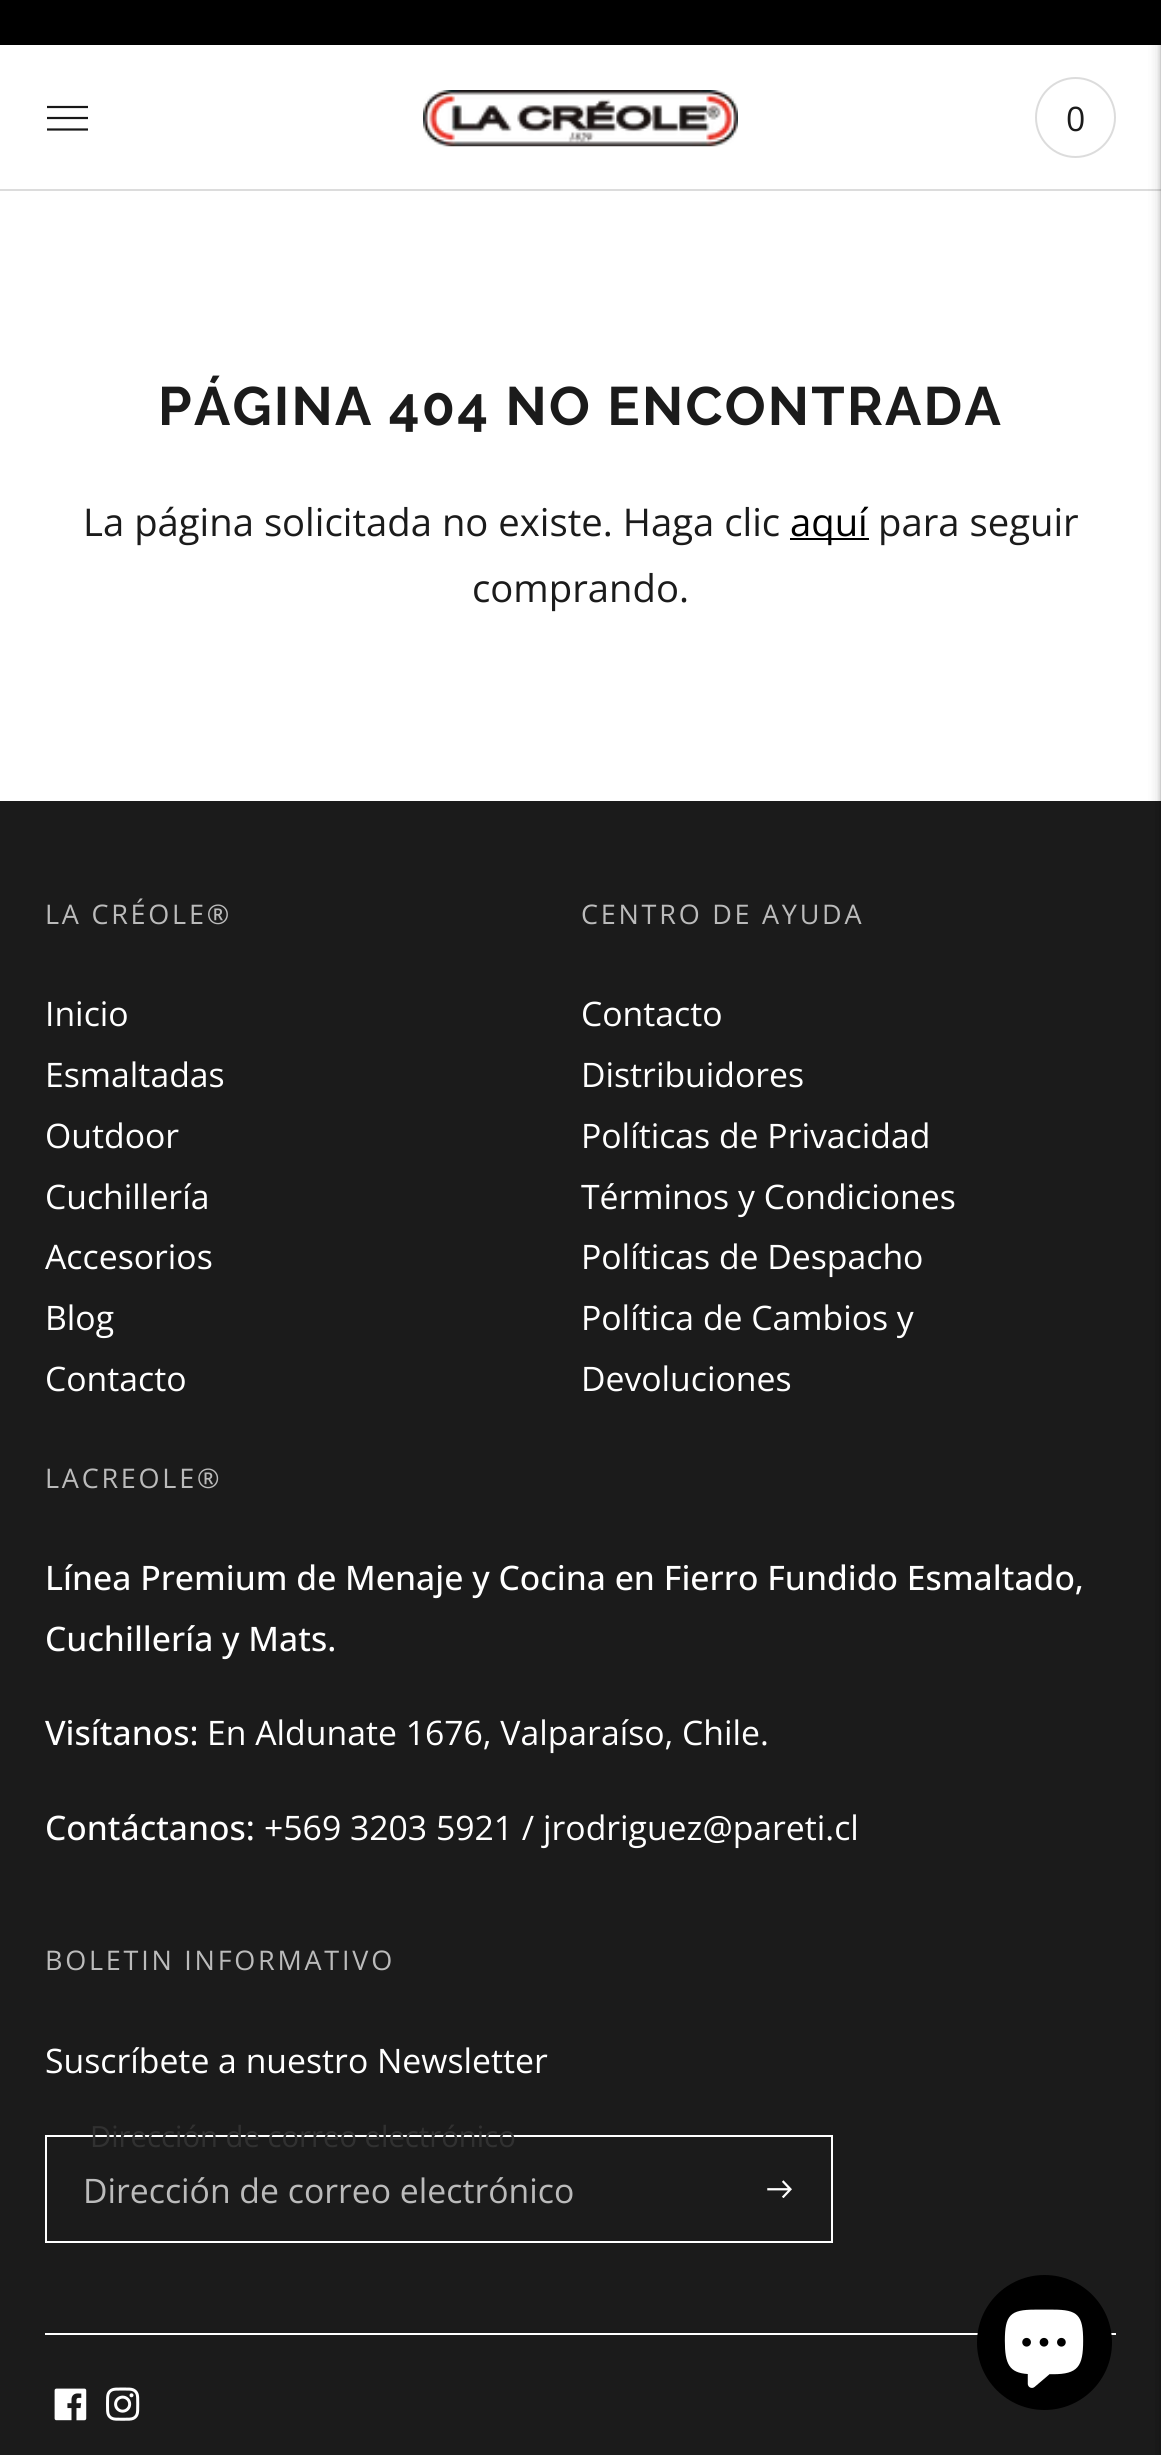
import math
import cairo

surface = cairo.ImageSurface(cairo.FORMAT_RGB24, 1161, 2455)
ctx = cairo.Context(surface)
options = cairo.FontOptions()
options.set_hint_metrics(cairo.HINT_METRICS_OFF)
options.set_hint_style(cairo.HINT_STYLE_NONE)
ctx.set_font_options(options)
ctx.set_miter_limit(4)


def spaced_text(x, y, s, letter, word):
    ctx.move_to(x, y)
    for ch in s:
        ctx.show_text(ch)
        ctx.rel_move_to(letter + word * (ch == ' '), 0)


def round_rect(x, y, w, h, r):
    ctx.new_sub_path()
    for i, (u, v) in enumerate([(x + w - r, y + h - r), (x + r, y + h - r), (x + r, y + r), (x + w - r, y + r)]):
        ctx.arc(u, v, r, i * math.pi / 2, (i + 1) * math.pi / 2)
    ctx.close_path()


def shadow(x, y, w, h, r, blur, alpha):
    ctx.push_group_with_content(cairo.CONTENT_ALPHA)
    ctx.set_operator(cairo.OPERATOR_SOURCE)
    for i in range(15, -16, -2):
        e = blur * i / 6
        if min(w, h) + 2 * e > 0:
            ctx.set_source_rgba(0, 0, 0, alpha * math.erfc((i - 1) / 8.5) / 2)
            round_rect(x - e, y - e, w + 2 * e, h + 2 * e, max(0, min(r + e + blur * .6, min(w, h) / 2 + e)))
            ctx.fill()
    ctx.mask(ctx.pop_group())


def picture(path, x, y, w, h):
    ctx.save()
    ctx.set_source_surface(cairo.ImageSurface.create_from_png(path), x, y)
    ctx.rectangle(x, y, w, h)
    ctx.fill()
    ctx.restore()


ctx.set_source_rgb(1, 1, 1)
ctx.paint()
ctx.set_source_rgb(0, 0, 0)
ctx.rectangle(0, 0, 1161, 45)
ctx.fill()
ctx.set_source_rgb(0.863, 0.863, 0.863)
ctx.rectangle(0, 189, 1161, 2)
ctx.fill()
ctx.set_source_rgb(0.106, 0.106, 0.106)
ctx.rectangle(0, 801, 1161, 1654)
ctx.fill()
ctx.set_source_rgb(0, 0, 0)
shadow(1161, 9, 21, 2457, 0, 7, 0.1)
shadow(1161, 5, 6, 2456, 0, 2, 0.15)
ctx.new_path()
ctx.move_to(47, 107)
ctx.line_to(88, 107)
ctx.move_to(47, 118)
ctx.line_to(88, 118)
ctx.move_to(47, 129.5)
ctx.line_to(88, 129.5)
ctx.set_source_rgb(0.09, 0.09, 0.09)
ctx.set_line_width(2.2)
ctx.stroke()
picture("img1.png", 423, 90, 315, 57)
ctx.arc(1075.5, 117.5, 39.5, 0, 2 * math.pi)
ctx.set_source_rgb(0.863, 0.863, 0.863)
ctx.set_line_width(2)
ctx.stroke()
ctx.select_font_face("Open Sans")
ctx.set_font_size(33.75)
ctx.set_source_rgb(0.106, 0.106, 0.106)
ctx.move_to(1066, 131)
ctx.show_text("0")
ctx.set_source_rgb(0, 0, 0)
shadow(1161, 9, 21, 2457, 0, 7, 0.1)
shadow(1161, 5, 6, 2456, 0, 2, 0.15)
ctx.select_font_face("Raleway", cairo.FONT_SLANT_NORMAL, cairo.FONT_WEIGHT_BOLD)
ctx.set_font_size(54)
ctx.set_source_rgb(0.106, 0.106, 0.106)
spaced_text(158, 425, "PÁGINA 404 NO ENCONTRADA", 2.25, 0)
ctx.select_font_face("Open Sans")
ctx.set_font_size(38.25)
ctx.move_to(83, 536)
ctx.show_text("La página solicitada no existe. Haga clic")
ctx.set_source_rgb(0, 0, 0)
ctx.rectangle(790, 538, 79, 2)
ctx.fill()
ctx.move_to(790, 536)
ctx.show_text("aquí")
ctx.set_source_rgb(0.106, 0.106, 0.106)
ctx.move_to(878, 536)
ctx.show_text("para seguir")
ctx.move_to(472, 602)
ctx.show_text("comprando.")
ctx.set_font_size(27)
ctx.set_source_rgb(0.733, 0.733, 0.733)
spaced_text(45, 924, "LA CRÉOLE®", 2.75, 0)
ctx.set_font_size(33.75)
ctx.set_source_rgb(1, 1, 1)
ctx.move_to(45, 1026)
ctx.show_text("Inicio")
ctx.move_to(45, 1087)
ctx.show_text("Esmaltadas")
ctx.move_to(45, 1148)
ctx.show_text("Outdoor")
ctx.move_to(45, 1209)
ctx.show_text("Cuchillería")
ctx.move_to(45, 1269)
ctx.show_text("Accesorios")
ctx.move_to(45, 1330)
ctx.show_text("Blog")
ctx.move_to(45, 1391)
ctx.show_text("Contacto")
ctx.set_font_size(27)
ctx.set_source_rgb(0.733, 0.733, 0.733)
spaced_text(581, 924, "CENTRO DE AYUDA", 2.75, 0)
ctx.set_font_size(33.75)
ctx.set_source_rgb(1, 1, 1)
ctx.move_to(581, 1026)
ctx.show_text("Contacto")
ctx.move_to(581, 1087)
ctx.show_text("Distribuidores")
ctx.move_to(581, 1148)
ctx.show_text("Políticas de Privacidad")
ctx.move_to(581, 1209)
ctx.show_text("Términos y Condiciones")
ctx.move_to(581, 1269)
ctx.show_text("Políticas de Despacho")
ctx.move_to(581, 1330)
ctx.show_text("Política de Cambios y")
ctx.move_to(581, 1391)
ctx.show_text("Devoluciones")
ctx.set_font_size(27)
ctx.set_source_rgb(0.733, 0.733, 0.733)
spaced_text(45, 1488, "LACREOLE®", 2.75, 0)
ctx.select_font_face("Open Sans Medium")
ctx.set_font_size(33.75)
ctx.set_source_rgb(1, 1, 1)
ctx.move_to(45, 1590)
ctx.show_text("Línea Premium de Menaje y Cocina en Fierro Fundido Esmaltado,")
ctx.move_to(45, 1651)
ctx.show_text("Cuchillería y Mats.")
ctx.move_to(45, 1745)
ctx.show_text("Visítanos:")
ctx.select_font_face("Open Sans")
ctx.move_to(207, 1745)
ctx.show_text("En Aldunate 1676, Valparaíso, Chile.")
ctx.select_font_face("Open Sans Medium")
ctx.move_to(45, 1840)
ctx.show_text("Contáctanos:")
ctx.select_font_face("Open Sans")
ctx.move_to(264, 1840)
ctx.show_text("+569 3203 5921 / jrodriguez@pareti.cl")
ctx.set_font_size(27)
ctx.set_source_rgb(0.733, 0.733, 0.733)
spaced_text(45, 1970, "BOLETIN INFORMATIVO", 2.75, 0)
ctx.set_font_size(33.75)
ctx.set_source_rgb(1, 1, 1)
ctx.move_to(45, 2073)
ctx.show_text("Suscríbete a nuestro Newsletter")
ctx.rectangle(46, 2136, 786, 106)
ctx.stroke()
ctx.set_font_size(29.25)
ctx.set_source_rgb(0.192, 0.192, 0.192)
ctx.move_to(90, 2147)
ctx.show_text("Dirección de correo electrónico")
ctx.set_font_size(33.75)
ctx.set_source_rgb(0.733, 0.733, 0.733)
ctx.move_to(83, 2203)
ctx.show_text("Dirección de correo electrónico")
picture("img2.png", 767, 2180, 25, 18)
ctx.set_source_rgb(1, 1, 1)
ctx.rectangle(45, 2333, 1071, 2)
ctx.fill()
picture("img3.png", 54, 2388, 33, 33)
picture("img4.png", 106, 2387, 34, 34)
ctx.set_source_rgb(0, 0, 0)
ctx.arc(1044.5, 2342.5, 67.5, 0, 2 * math.pi)
ctx.fill()
picture("img5.png", 1004, 2309, 80, 79)
surface.write_to_png("page.png")
